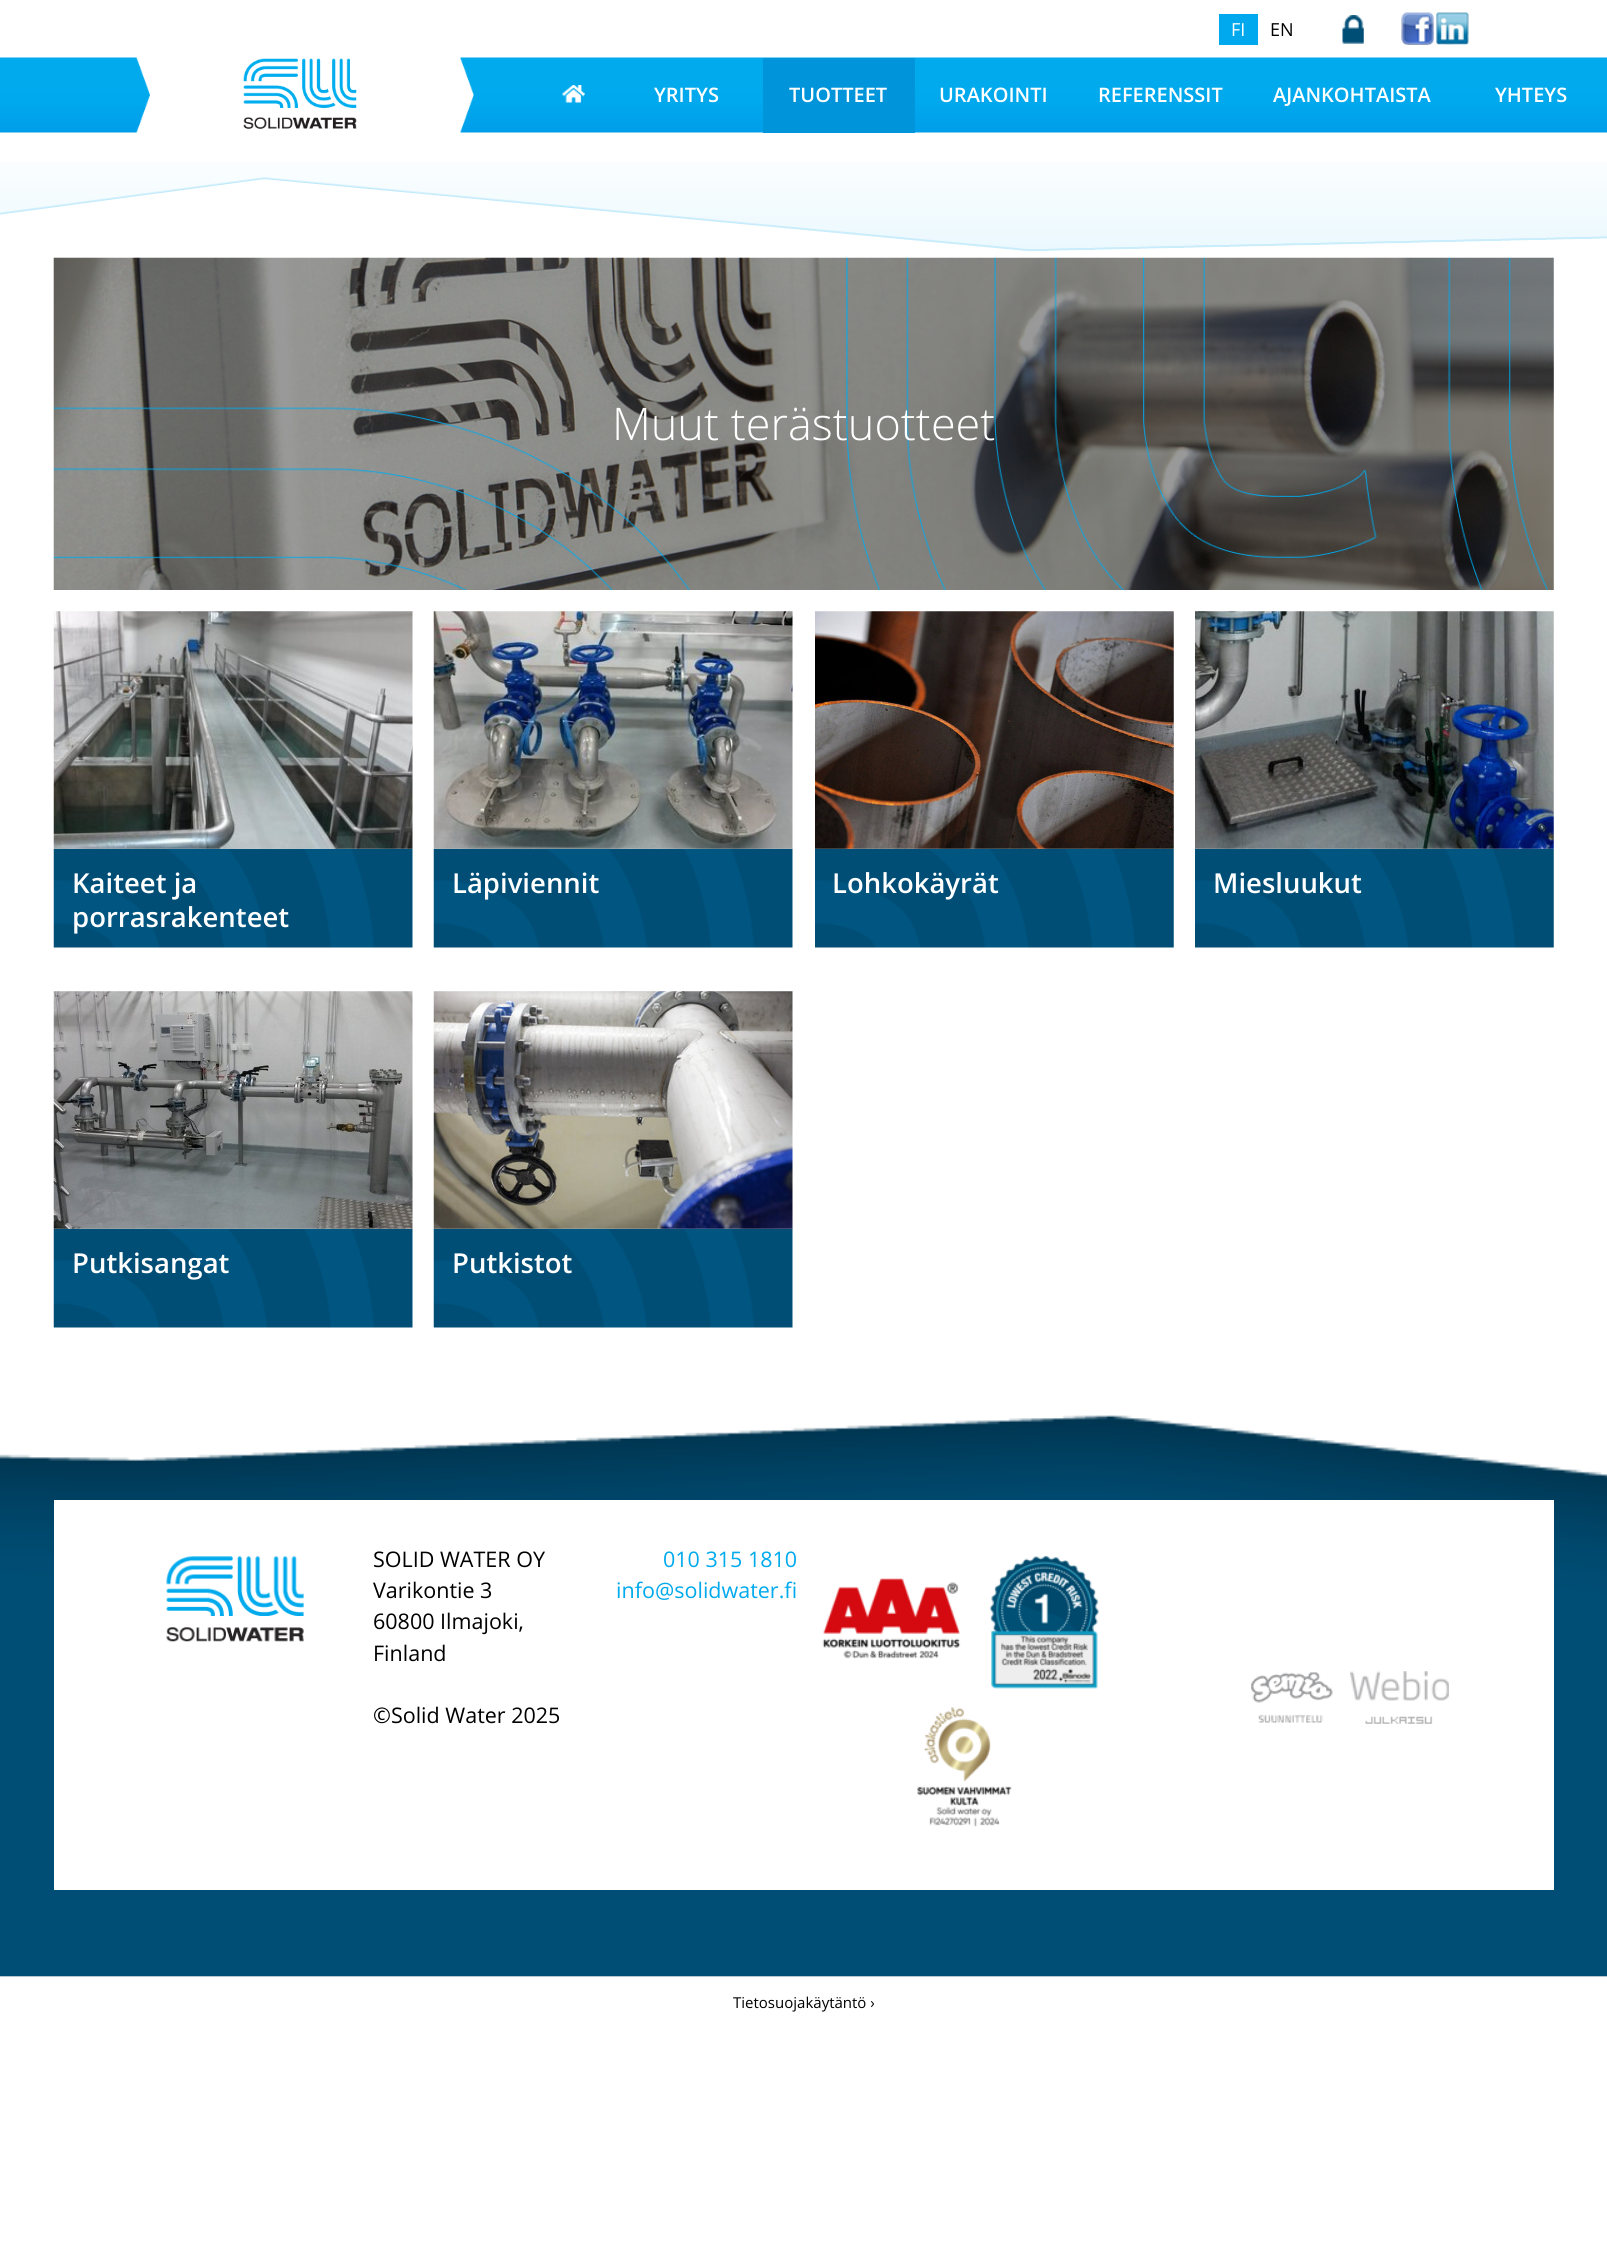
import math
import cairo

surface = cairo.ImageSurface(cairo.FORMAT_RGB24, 1607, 2264)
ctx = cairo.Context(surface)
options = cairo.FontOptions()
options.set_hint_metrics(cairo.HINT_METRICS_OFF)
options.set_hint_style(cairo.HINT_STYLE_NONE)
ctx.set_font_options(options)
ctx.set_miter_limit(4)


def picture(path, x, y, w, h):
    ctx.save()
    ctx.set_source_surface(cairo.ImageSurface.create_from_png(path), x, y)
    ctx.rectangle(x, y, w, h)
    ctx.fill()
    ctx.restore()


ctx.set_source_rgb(1, 1, 1)
ctx.paint()
picture("img8.png", 53, 257, 1501, 333)
picture("img9.png", 53, 257, 1501, 333)
picture("img1.png", 0, 162, 1607, 96)
ctx.set_source_rgb(0, 0.659, 0.929)
ctx.rectangle(1219, 14, 39, 31)
ctx.fill()
ctx.select_font_face("Open Sans")
ctx.set_font_size(18)
ctx.set_source_rgb(1, 1, 1)
ctx.move_to(1231, 36)
ctx.show_text("FI")
ctx.set_source_rgb(0, 0, 0)
ctx.move_to(1270, 36)
ctx.show_text("EN")
picture("img2.png", 1342, 15, 22, 29)
picture("img3.png", 1401, 12, 33, 33)
picture("img4.png", 1435, 12, 34, 33)
picture("img5.png", 0, 57, 1607, 76)
picture("img6.png", 243, 58, 114, 71)
picture("img7.png", 562, 85, 23, 18)
ctx.select_font_face("Open Sans SemiBold")
ctx.set_font_size(20)
ctx.set_source_rgb(1, 1, 1)
ctx.move_to(654, 102)
ctx.show_text("YRITYS")
ctx.set_source_rgb(0, 0.584, 0.855)
ctx.rectangle(763, 58, 152, 75)
ctx.fill()
ctx.set_source_rgb(1, 1, 1)
ctx.move_to(789, 102)
ctx.show_text("TUOTTEET")
ctx.move_to(939, 102)
ctx.show_text("URAKOINTI")
ctx.move_to(1098, 102)
ctx.show_text("REFERENSSIT")
ctx.move_to(1273, 102)
ctx.show_text("AJANKOHTAISTA")
ctx.move_to(1495, 102)
ctx.show_text("YHTEYS")
ctx.select_font_face("Open Sans Light")
ctx.set_font_size(45)
ctx.move_to(612, 440)
ctx.show_text("Muut terästuotteet")
picture("img11.png", 53, 848, 360, 100)
picture("img10.png", 53, 611, 360, 238)
ctx.select_font_face("Open Sans SemiBold")
ctx.set_font_size(27.5)
ctx.move_to(72, 893)
ctx.show_text("Kaiteet ja")
ctx.move_to(72, 927)
ctx.show_text("porrasrakenteet")
picture("img13.png", 433, 848, 360, 100)
picture("img12.png", 433, 611, 360, 238)
ctx.move_to(452, 893)
ctx.show_text("Läpiviennit")
picture("img15.png", 815, 848, 359, 100)
picture("img14.png", 815, 611, 359, 238)
ctx.move_to(832, 893)
ctx.show_text("Lohkokäyrät")
picture("img17.png", 1195, 848, 359, 100)
picture("img16.png", 1195, 611, 359, 238)
ctx.move_to(1213, 893)
ctx.show_text("Miesluukut")
picture("img11.png", 53, 1228, 360, 100)
picture("img18.png", 53, 991, 360, 238)
ctx.move_to(72, 1273)
ctx.show_text("Putkisangat")
picture("img13.png", 433, 1228, 360, 100)
picture("img19.png", 433, 991, 360, 238)
ctx.move_to(452, 1273)
ctx.show_text("Putkistot")
ctx.set_source_rgb(0.949, 0.949, 0.949)
ctx.rectangle(0, 1976, 1607, 1)
ctx.fill()
picture("img20.png", 0, 1415, 1607, 562)
ctx.set_source_rgb(1, 1, 1)
ctx.rectangle(54, 1500, 1500, 390)
ctx.fill()
picture("img21.png", 166, 1556, 138, 86)
ctx.select_font_face("Open Sans")
ctx.set_font_size(21.5)
ctx.set_source_rgb(0, 0, 0)
ctx.move_to(373, 1567)
ctx.show_text("SOLID WATER OY")
ctx.move_to(373, 1598)
ctx.show_text("Varikontie 3")
ctx.move_to(373, 1629)
ctx.show_text("60800 Ilmajoki,")
ctx.move_to(373, 1661)
ctx.show_text("Finland")
ctx.set_source_rgb(0, 0.667, 0.929)
ctx.move_to(663, 1567)
ctx.show_text("010 315 1810")
ctx.move_to(616, 1598)
ctx.show_text("info@solidwater.fi")
ctx.set_source_rgb(0, 0, 0)
ctx.move_to(373, 1723)
ctx.show_text("©Solid Water 2025")
picture("img22.png", 822, 1578, 139, 81)
picture("img23.png", 989, 1555, 110, 134)
picture("img24.png", 917, 1707, 95, 120)
picture("img25.png", 1251, 1672, 82, 51)
picture("img26.png", 1350, 1671, 99, 53)
ctx.set_font_size(15)
ctx.move_to(733, 2008)
ctx.show_text("Tietosuojakäytäntö ›")
surface.write_to_png("page.png")
